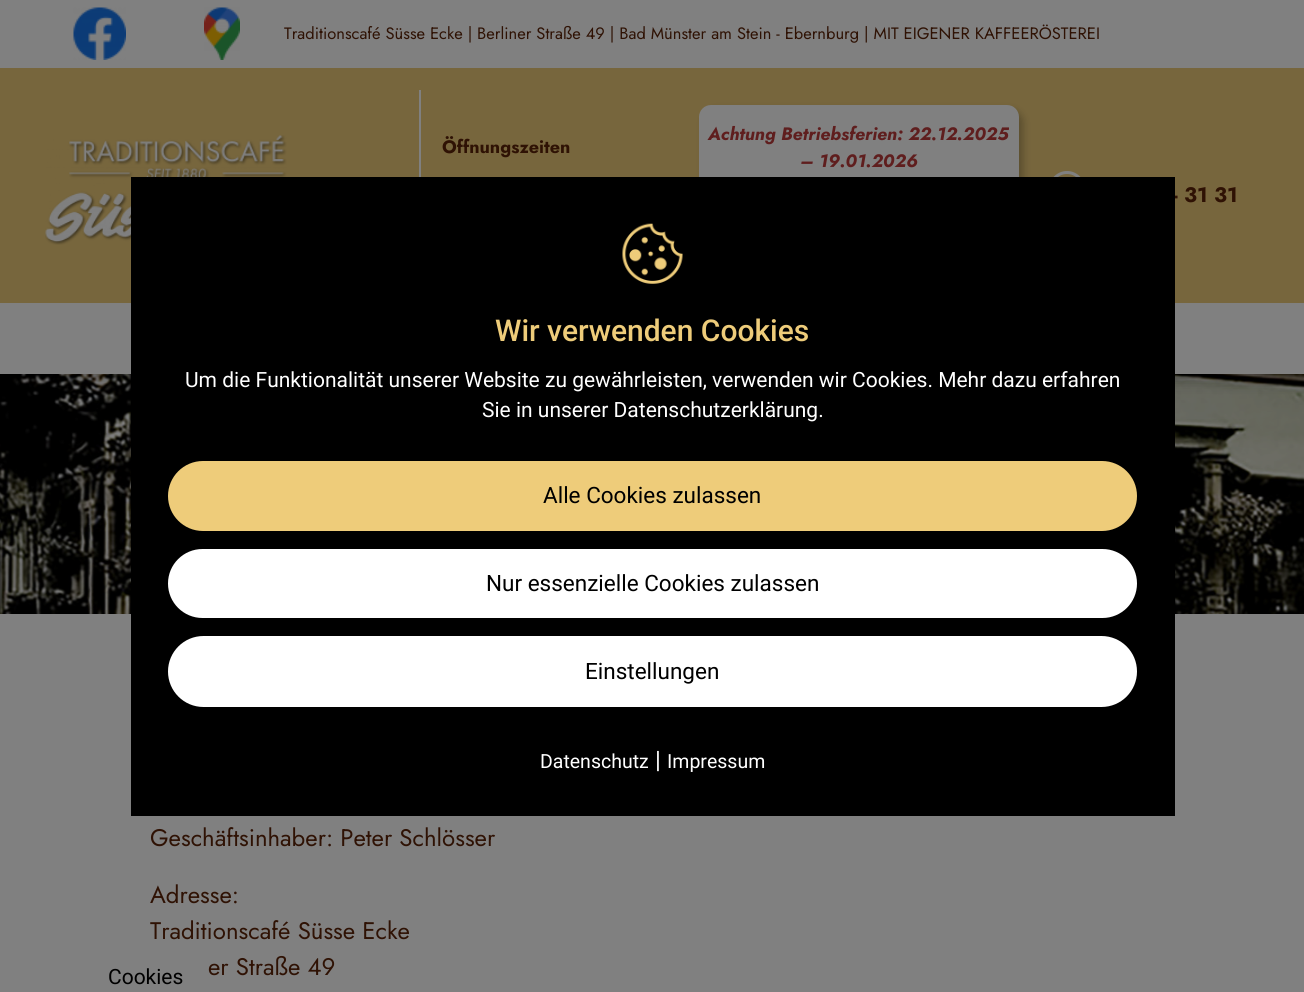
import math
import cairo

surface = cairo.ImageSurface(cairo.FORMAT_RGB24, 1304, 992)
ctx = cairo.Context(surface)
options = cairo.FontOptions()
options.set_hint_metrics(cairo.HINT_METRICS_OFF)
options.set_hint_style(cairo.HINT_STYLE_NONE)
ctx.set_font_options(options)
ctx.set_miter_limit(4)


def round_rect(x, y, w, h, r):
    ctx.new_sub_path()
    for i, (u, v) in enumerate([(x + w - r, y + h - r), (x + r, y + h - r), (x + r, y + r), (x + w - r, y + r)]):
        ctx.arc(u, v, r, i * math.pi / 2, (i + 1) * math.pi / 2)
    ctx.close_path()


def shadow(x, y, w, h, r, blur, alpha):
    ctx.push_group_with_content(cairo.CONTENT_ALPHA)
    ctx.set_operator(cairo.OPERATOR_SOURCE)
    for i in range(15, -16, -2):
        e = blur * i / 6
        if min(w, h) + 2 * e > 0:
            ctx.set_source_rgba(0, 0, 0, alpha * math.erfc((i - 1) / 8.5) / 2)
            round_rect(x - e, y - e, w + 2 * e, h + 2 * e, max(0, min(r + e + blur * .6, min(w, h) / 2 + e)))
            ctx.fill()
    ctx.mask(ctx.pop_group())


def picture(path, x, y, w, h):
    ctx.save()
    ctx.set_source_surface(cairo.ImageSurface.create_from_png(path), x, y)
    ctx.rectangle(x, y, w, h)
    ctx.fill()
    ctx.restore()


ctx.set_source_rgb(0.502, 0.502, 0.502)
ctx.paint()
picture("img1.png", 73, 7, 53, 53)
picture("img2.png", 204, 7, 36, 53)
ctx.select_font_face("Jost")
ctx.set_font_size(16.5)
ctx.set_source_rgb(0.184, 0.071, 0.016)
ctx.move_to(284, 39)
ctx.show_text("Traditionscafé Süsse Ecke | Berliner Straße 49 | Bad Münster am Stein - Ebernburg | MIT EIGENER KAFFEERÖSTEREI")
picture("img5.png", 0, 374, 1304, 240)
ctx.set_source_rgb(0, 0, 0)
shadow(0, 308, 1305, 70, 0, 7.5, 0.35)
ctx.set_source_rgb(0.467, 0.4, 0.239)
ctx.rectangle(0, 68, 1304, 235)
ctx.fill()
picture("img3.png", 45, 135, 242, 110)
ctx.set_source_rgb(0.502, 0.502, 0.502)
ctx.rectangle(419, 90, 2, 87)
ctx.fill()
ctx.select_font_face("Jost", cairo.FONT_SLANT_NORMAL, cairo.FONT_WEIGHT_BOLD)
ctx.set_font_size(18)
ctx.set_source_rgb(0.184, 0.071, 0.016)
ctx.move_to(442, 153)
ctx.show_text("Öffnungszeiten")
ctx.set_source_rgb(0, 0, 0)
shadow(704, 110, 319, 168, 12, 4, 0.25)
ctx.set_source_rgb(0.502, 0.502, 0.502)
round_rect(699, 105, 320, 168, 12)
ctx.fill()
ctx.select_font_face("Jost", cairo.FONT_SLANT_ITALIC, cairo.FONT_WEIGHT_BOLD)
ctx.set_source_rgb(0.373, 0.118, 0.118)
ctx.move_to(708, 140)
ctx.show_text("Achtung Betriebsferien: 22.12.2025")
ctx.move_to(800, 167)
ctx.show_text("– 19.01.2026")
ctx.new_path()
ctx.arc(1067, 189, 16.5, 0, 2 * math.pi)
ctx.set_source_rgb(0.502, 0.502, 0.502)
ctx.set_line_width(3)
ctx.stroke()
ctx.select_font_face("Jost", cairo.FONT_SLANT_NORMAL, cairo.FONT_WEIGHT_BOLD)
ctx.set_font_size(21)
ctx.set_source_rgb(0.184, 0.071, 0.016)
ctx.move_to(1173, 202)
ctx.show_text("- 31 31")
ctx.set_source_rgb(0.502, 0.502, 0.502)
ctx.rectangle(0, 303, 1304, 71)
ctx.fill()
ctx.set_source_rgb(0, 0, 0)
ctx.rectangle(131, 177, 1044, 639)
ctx.fill()
picture("img4.png", 622, 223, 61, 61)
ctx.select_font_face("Roboto Medium")
ctx.set_font_size(30)
ctx.set_source_rgb(0.933, 0.8, 0.478)
ctx.move_to(495, 341)
ctx.show_text("Wir verwenden Cookies")
ctx.select_font_face("Roboto")
ctx.set_font_size(21)
ctx.set_source_rgb(1, 1, 1)
ctx.move_to(185, 387)
ctx.show_text("Um die Funktionalität unserer Website zu gewährleisten, verwenden wir Cookies. Mehr dazu erfahren")
ctx.move_to(482, 417)
ctx.show_text("Sie in unserer Datenschutzerklärung.")
ctx.set_source_rgb(0.933, 0.8, 0.478)
round_rect(168, 461, 969, 70, 35)
ctx.fill()
ctx.set_font_size(22.5)
ctx.set_source_rgb(0, 0, 0)
ctx.move_to(543, 503)
ctx.show_text("Alle Cookies zulassen")
ctx.set_source_rgb(1, 1, 1)
round_rect(168, 549, 969, 69, 34.5)
ctx.fill()
ctx.set_source_rgb(0, 0, 0)
ctx.move_to(486, 591)
ctx.show_text("Nur essenzielle Cookies zulassen")
ctx.set_source_rgb(1, 1, 1)
round_rect(168, 636, 969, 71, 35.5)
ctx.fill()
ctx.set_source_rgb(0, 0, 0)
ctx.move_to(585, 679)
ctx.show_text("Einstellungen")
ctx.set_font_size(19.5)
ctx.set_source_rgb(1, 1, 1)
ctx.move_to(540, 768)
ctx.show_text("Datenschutz")
ctx.set_font_size(24)
ctx.move_to(655, 768)
ctx.show_text("|")
ctx.set_font_size(19.5)
ctx.move_to(667, 768)
ctx.show_text("Impressum")
ctx.set_font_size(21)
ctx.set_source_rgb(0, 0, 0)
ctx.move_to(108, 984)
ctx.show_text("Cookies")
ctx.select_font_face("Jost")
ctx.set_font_size(24)
ctx.set_source_rgb(0.184, 0.071, 0.016)
ctx.move_to(150, 846)
ctx.show_text("Geschäftsinhaber: Peter Schlösser")
ctx.move_to(150, 903)
ctx.show_text("Adresse:")
ctx.move_to(150, 939)
ctx.show_text("Traditionscafé Süsse Ecke")
ctx.move_to(208, 975)
ctx.show_text("er Straße 49")
surface.write_to_png("page.png")
